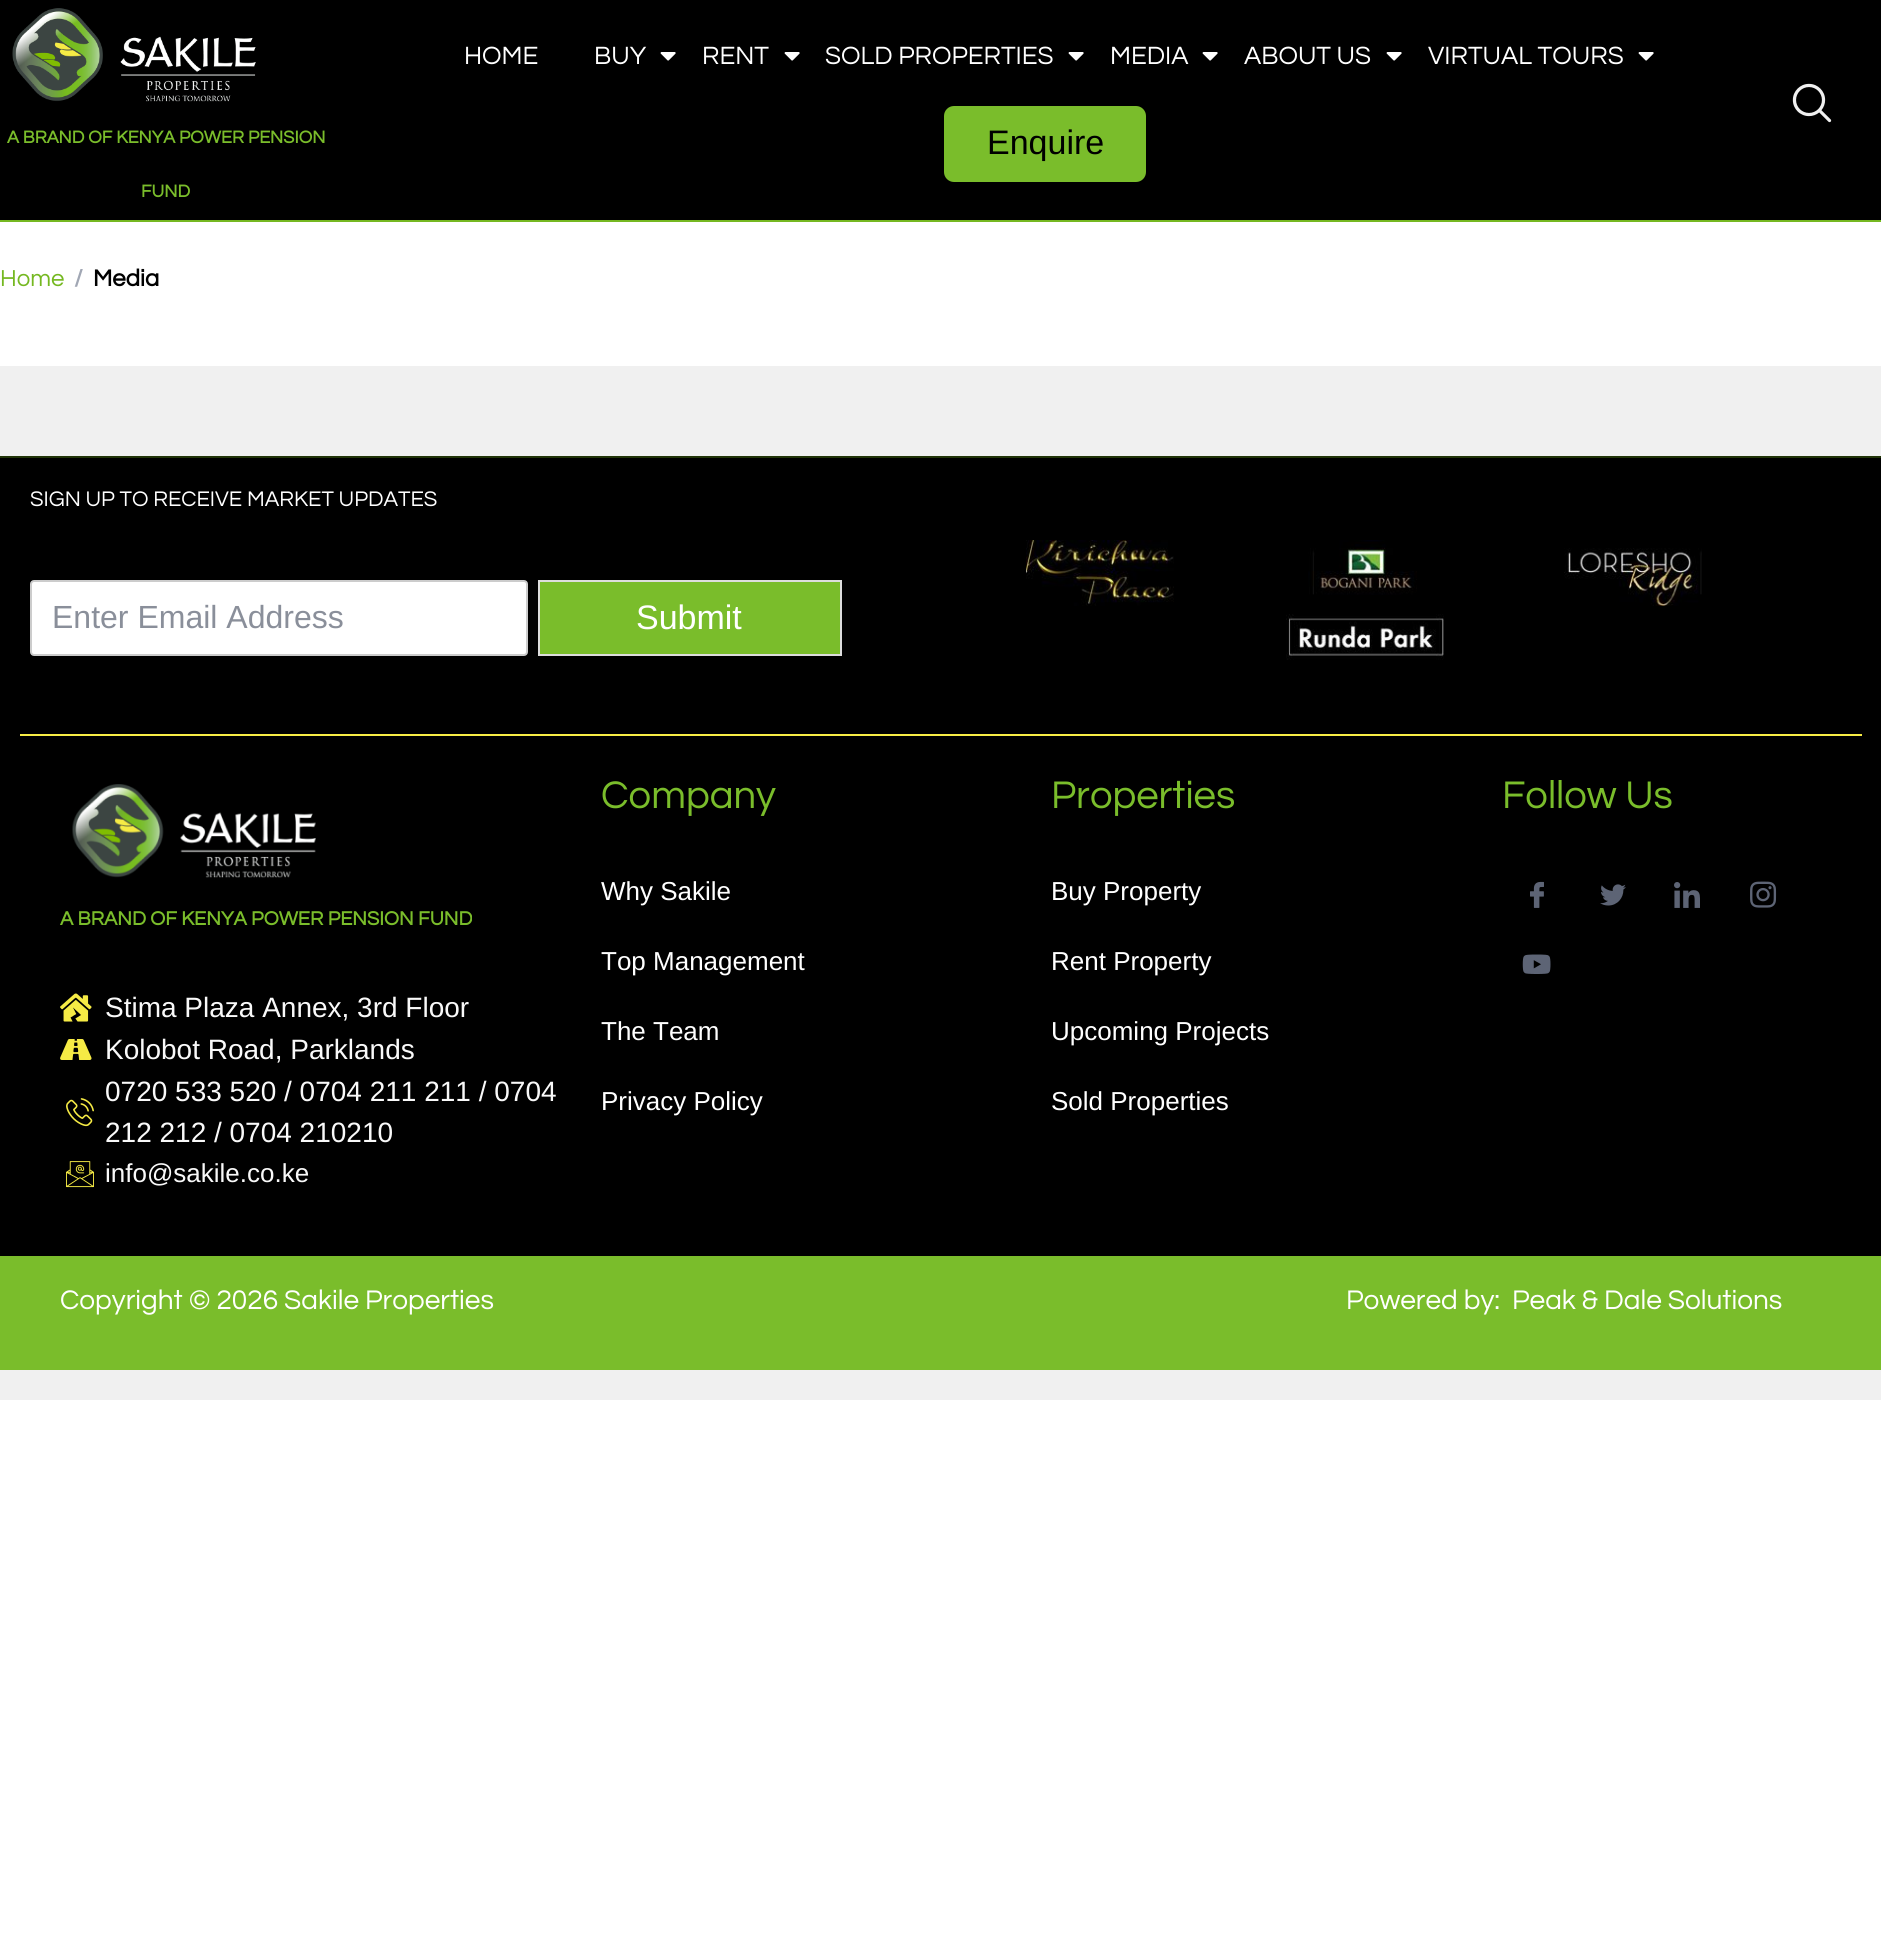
import math
import cairo

surface = cairo.ImageSurface(cairo.FORMAT_RGB24, 1881, 1950)
ctx = cairo.Context(surface)
options = cairo.FontOptions()
options.set_hint_metrics(cairo.HINT_METRICS_OFF)
options.set_hint_style(cairo.HINT_STYLE_NONE)
ctx.set_font_options(options)
ctx.set_miter_limit(4)


def round_rect(x, y, w, h, r):
    ctx.new_sub_path()
    for i, (u, v) in enumerate([(x + w - r, y + h - r), (x + r, y + h - r), (x + r, y + r), (x + w - r, y + r)]):
        ctx.arc(u, v, r, i * math.pi / 2, (i + 1) * math.pi / 2)
    ctx.close_path()


def picture(path, x, y, w, h):
    ctx.save()
    ctx.set_source_surface(cairo.ImageSurface.create_from_png(path), x, y)
    ctx.rectangle(x, y, w, h)
    ctx.fill()
    ctx.restore()


ctx.set_source_rgb(1, 1, 1)
ctx.paint()
ctx.set_source_rgb(0, 0, 0)
ctx.rectangle(0, 0, 1881, 220)
ctx.fill()
ctx.set_source_rgb(0.459, 0.722, 0.129)
ctx.rectangle(0, 220, 1881, 2)
ctx.fill()
ctx.select_font_face("Questrial")
ctx.set_font_size(26)
ctx.set_source_rgb(1, 1, 1)
ctx.move_to(464, 64)
ctx.show_text("HOME")
ctx.move_to(594, 64)
ctx.show_text("BUY")
picture("img1.png", 660, 52, 16, 9)
ctx.move_to(702, 64)
ctx.show_text("RENT")
picture("img1.png", 784, 52, 16, 9)
ctx.move_to(825, 64)
ctx.show_text("SOLD PROPERTIES")
picture("img1.png", 1068, 52, 16, 9)
ctx.move_to(1110, 64)
ctx.show_text("MEDIA")
picture("img1.png", 1202, 52, 16, 9)
ctx.move_to(1244, 64)
ctx.show_text("ABOUT US")
picture("img1.png", 1386, 52, 16, 9)
ctx.move_to(1428, 64)
ctx.show_text("VIRTUAL TOURS")
picture("img1.png", 1638, 52, 16, 9)
ctx.set_source_rgb(0.478, 0.741, 0.169)
round_rect(945, 107, 200, 74, 9)
ctx.fill_preserve()
ctx.stroke()
ctx.select_font_face("Liberation Sans")
ctx.set_font_size(34)
ctx.set_source_rgb(0, 0, 0)
ctx.move_to(987, 154)
ctx.show_text("Enquire")
picture("img2.png", 1792, 83, 40, 40)
picture("img3.png", 12, 8, 244, 94)
ctx.select_font_face("Questrial", cairo.FONT_SLANT_NORMAL, cairo.FONT_WEIGHT_BOLD)
ctx.set_font_size(18)
ctx.set_source_rgb(0.478, 0.741, 0.169)
ctx.move_to(7, 143)
ctx.show_text("A BRAND OF KENYA POWER PENSION")
ctx.move_to(141, 197)
ctx.show_text("FUND")
ctx.select_font_face("Questrial")
ctx.set_font_size(24)
ctx.set_source_rgb(0.459, 0.722, 0.129)
ctx.move_to(0, 286)
ctx.show_text("Home")
ctx.select_font_face("Questrial", cairo.FONT_SLANT_NORMAL, cairo.FONT_WEIGHT_BOLD)
ctx.set_source_rgb(0.631, 0.655, 0.706)
ctx.move_to(74, 286)
ctx.show_text("/")
ctx.set_source_rgb(0, 0, 0)
ctx.move_to(93, 286)
ctx.show_text("Media")
ctx.set_source_rgb(0.941, 0.941, 0.941)
ctx.rectangle(0, 366, 1881, 1034)
ctx.fill()
ctx.set_source_rgb(0, 0, 0)
ctx.rectangle(0, 458, 1881, 798)
ctx.fill()
ctx.set_source_rgb(0.129, 0.204, 0.035)
ctx.rectangle(0, 456, 1881, 2)
ctx.fill()
ctx.select_font_face("Questrial")
ctx.set_font_size(22)
ctx.set_source_rgb(1, 1, 1)
ctx.move_to(30, 506)
ctx.show_text("SIGN UP TO RECEIVE MARKET UPDATES")
round_rect(31, 581, 496, 74, 3)
ctx.fill_preserve()
ctx.set_source_rgb(0.8, 0.8, 0.8)
ctx.stroke()
ctx.select_font_face("Liberation Sans")
ctx.set_font_size(32)
ctx.set_source_rgb(0.541, 0.561, 0.604)
ctx.move_to(52, 628)
ctx.show_text("Enter Email Address")
ctx.set_source_rgb(0.478, 0.741, 0.169)
ctx.rectangle(539, 581, 302, 74)
ctx.fill_preserve()
ctx.set_source_rgb(0.867, 0.867, 0.867)
ctx.stroke()
ctx.set_font_size(34)
ctx.set_source_rgb(1, 1, 1)
ctx.move_to(636, 629)
ctx.show_text("Submit")
picture("img4.png", 1026, 540, 148, 66)
picture("img5.png", 1308, 540, 109, 55)
picture("img6.png", 1564, 548, 138, 58)
picture("img7.png", 1286, 614, 158, 46)
ctx.set_source_rgb(0.965, 0.922, 0.271)
ctx.rectangle(20, 734, 1842, 2)
ctx.fill()
picture("img8.png", 72, 784, 244, 94)
ctx.select_font_face("Questrial", cairo.FONT_SLANT_NORMAL, cairo.FONT_WEIGHT_BOLD)
ctx.set_font_size(20)
ctx.set_source_rgb(0.478, 0.741, 0.169)
ctx.move_to(60, 925)
ctx.show_text("A BRAND OF KENYA POWER PENSION FUND")
picture("img9.png", 60, 993, 32, 29)
ctx.select_font_face("Liberation Sans")
ctx.set_font_size(28)
ctx.set_source_rgb(0.976, 0.976, 0.976)
ctx.move_to(105, 1017)
ctx.show_text("Stima Plaza Annex, 3rd Floor")
picture("img10.png", 60, 1039, 32, 21)
ctx.move_to(105, 1059)
ctx.show_text("Kolobot Road, Parklands")
picture("img11.png", 66, 1098, 28, 29)
ctx.move_to(105, 1101)
ctx.show_text("0720 533 520 / 0704 211 211 / 0704")
ctx.move_to(105, 1142)
ctx.show_text("212 212 / 0704 210210")
picture("img12.png", 66, 1161, 28, 27)
ctx.set_font_size(26)
ctx.move_to(105, 1182)
ctx.show_text("info@sakile.co.ke")
ctx.select_font_face("Questrial")
ctx.set_font_size(40)
ctx.set_source_rgb(0.478, 0.741, 0.169)
ctx.move_to(601, 808)
ctx.show_text("Company")
ctx.select_font_face("Liberation Sans")
ctx.set_font_size(26)
ctx.set_source_rgb(1, 1, 1)
ctx.move_to(601, 900)
ctx.show_text("Why Sakile")
ctx.move_to(601, 970)
ctx.show_text("Top Management")
ctx.move_to(601, 1040)
ctx.show_text("The Team")
ctx.move_to(601, 1110)
ctx.show_text("Privacy Policy")
ctx.select_font_face("Questrial")
ctx.set_font_size(40)
ctx.set_source_rgb(0.478, 0.741, 0.169)
ctx.move_to(1051, 808)
ctx.show_text("Properties")
ctx.select_font_face("Liberation Sans")
ctx.set_font_size(26)
ctx.set_source_rgb(1, 1, 1)
ctx.move_to(1051, 900)
ctx.show_text("Buy Property")
ctx.move_to(1051, 970)
ctx.show_text("Rent Property")
ctx.move_to(1051, 1040)
ctx.show_text("Upcoming Projects")
ctx.move_to(1051, 1110)
ctx.show_text("Sold Properties")
ctx.select_font_face("Questrial")
ctx.set_font_size(40)
ctx.set_source_rgb(0.478, 0.741, 0.169)
ctx.move_to(1502, 808)
ctx.show_text("Follow Us")
picture("img13.png", 1530, 881, 14, 27)
picture("img14.png", 1600, 884, 26, 22)
picture("img15.png", 1674, 882, 26, 26)
picture("img16.png", 1750, 881, 27, 27)
picture("img17.png", 1522, 954, 29, 20)
ctx.rectangle(0, 1256, 1881, 114)
ctx.fill()
ctx.set_font_size(28)
ctx.set_source_rgb(1, 1, 1)
ctx.move_to(60, 1309)
ctx.show_text("Copyright © 2026 Sakile Properties")
ctx.move_to(1346, 1309)
ctx.show_text("Powered by:")
ctx.move_to(1512, 1309)
ctx.show_text("Peak & Dale Solutions")
surface.write_to_png("page.png")
